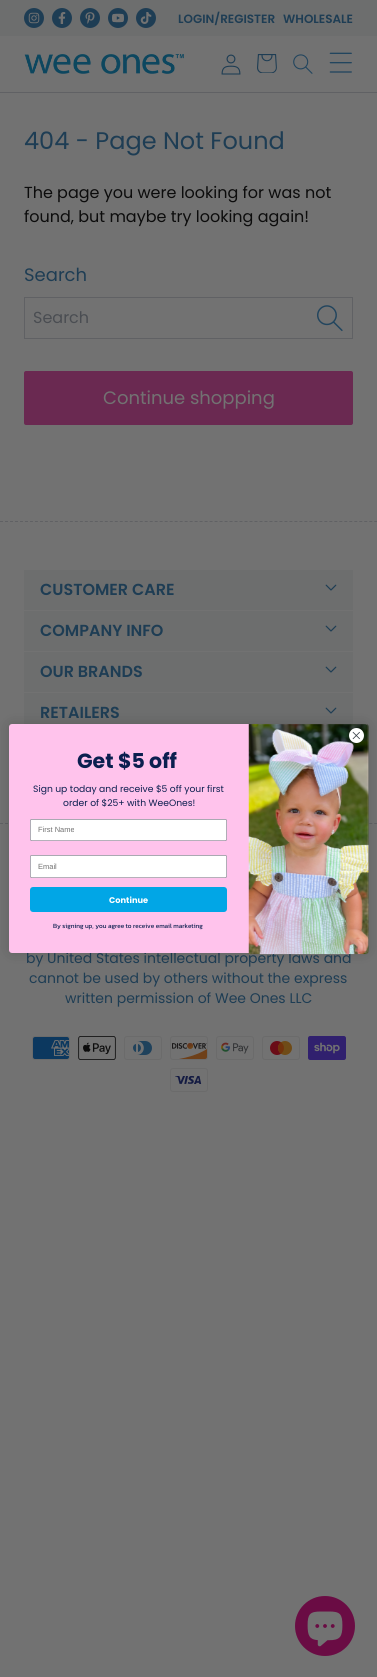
import math
import cairo

surface = cairo.ImageSurface(cairo.FORMAT_RGB24, 377, 1677)
ctx = cairo.Context(surface)
options = cairo.FontOptions()
options.set_hint_metrics(cairo.HINT_METRICS_OFF)
options.set_hint_style(cairo.HINT_STYLE_NONE)
ctx.set_font_options(options)
ctx.set_miter_limit(4)


def round_rect(x, y, w, h, r):
    ctx.new_sub_path()
    for i, (u, v) in enumerate([(x + w - r, y + h - r), (x + r, y + h - r), (x + r, y + r), (x + w - r, y + r)]):
        ctx.arc(u, v, r, i * math.pi / 2, (i + 1) * math.pi / 2)
    ctx.close_path()


def shadow(x, y, w, h, r, blur, alpha):
    ctx.push_group_with_content(cairo.CONTENT_ALPHA)
    ctx.set_operator(cairo.OPERATOR_SOURCE)
    for i in range(15, -16, -2):
        e = blur * i / 6
        if min(w, h) + 2 * e > 0:
            ctx.set_source_rgba(0, 0, 0, alpha * math.erfc((i - 1) / 8.5) / 2)
            round_rect(x - e, y - e, w + 2 * e, h + 2 * e, max(0, min(r + e + blur * .6, min(w, h) / 2 + e)))
            ctx.fill()
    ctx.mask(ctx.pop_group())


def picture(path, x, y, w, h):
    ctx.save()
    ctx.set_source_surface(cairo.ImageSurface.create_from_png(path), x, y)
    ctx.rectangle(x, y, w, h)
    ctx.fill()
    ctx.restore()


ctx.set_source_rgb(0.447, 0.447, 0.447)
ctx.paint()
ctx.set_source_rgb(0.427, 0.431, 0.431)
ctx.rectangle(0, 0, 377, 36)
ctx.fill()
ctx.set_source_rgb(0.118, 0.239, 0.329)
ctx.arc(34, 18, 10, 0, 2 * math.pi)
ctx.fill()
picture("img1.png", 28, 12, 12, 12)
ctx.arc(62, 18, 10, 0, 2 * math.pi)
ctx.fill()
picture("img2.png", 58, 12, 8, 12)
ctx.arc(90, 18, 10, 0, 2 * math.pi)
ctx.fill()
picture("img3.png", 85, 12, 10, 12)
ctx.arc(118, 18, 10, 0, 2 * math.pi)
ctx.fill()
picture("img4.png", 112, 13, 12, 10)
ctx.arc(146, 18, 10, 0, 2 * math.pi)
ctx.fill()
picture("img5.png", 140, 12, 12, 12)
ctx.select_font_face("Poppins SemiBold")
ctx.set_font_size(12)
ctx.move_to(178, 23)
ctx.show_text("LOGIN/REGISTER")
ctx.move_to(283, 23)
ctx.show_text("WHOLESALE")
ctx.set_source_rgb(0.376, 0.38, 0.392)
ctx.rectangle(0, 92, 377, 1)
ctx.fill()
picture("img6.png", 24, 54, 160, 20)
picture("img7.png", 221, 54, 20, 21)
picture("img8.png", 257, 54, 20, 19)
picture("img9.png", 293, 54, 20, 20)
picture("img10.png", 329, 52, 23, 21)
ctx.select_font_face("Poppins")
ctx.set_font_size(24)
ctx.set_source_rgb(0.118, 0.239, 0.329)
ctx.move_to(24, 149)
ctx.show_text("404 - Page Not Found")
ctx.set_font_size(16)
ctx.set_source_rgb(0.047, 0.047, 0.047)
ctx.move_to(24, 198)
ctx.show_text("The page you were looking for was not")
ctx.move_to(24, 222)
ctx.show_text("found, but maybe try looking again!")
ctx.set_font_size(18)
ctx.set_source_rgb(0.118, 0.239, 0.329)
ctx.move_to(24, 281)
ctx.show_text("Search")
ctx.rectangle(24.5, 297.5, 328, 41)
ctx.set_source_rgb(0.376, 0.38, 0.392)
ctx.set_line_width(1)
ctx.stroke()
ctx.set_font_size(16)
ctx.set_source_rgb(0.29, 0.302, 0.322)
ctx.move_to(33, 323)
ctx.show_text("Search")
picture("img11.png", 317, 305, 26, 27)
ctx.set_source_rgb(0.416, 0.161, 0.318)
round_rect(24, 371, 329, 54, 2)
ctx.fill()
ctx.set_font_size(18)
ctx.set_source_rgb(0.447, 0.447, 0.447)
ctx.move_to(103, 404)
ctx.show_text("Continue shopping")
ctx.new_path()
ctx.move_to(0, 521.5)
ctx.line_to(377, 521.5)
ctx.set_source_rgb(0.376, 0.38, 0.392)
ctx.set_dash([3, 1.99])
ctx.stroke()
ctx.new_path()
ctx.move_to(0, 823.5)
ctx.line_to(377, 823.5)
ctx.stroke()
ctx.set_source_rgb(0.427, 0.431, 0.431)
ctx.rectangle(24, 570, 329, 40)
ctx.fill()
ctx.select_font_face("Poppins SemiBold")
ctx.set_font_size(16)
ctx.set_source_rgb(0.118, 0.239, 0.329)
ctx.move_to(40, 595)
ctx.show_text("CUSTOMER CARE")
picture("img12.png", 325, 584, 12, 7)
ctx.set_source_rgb(0.427, 0.431, 0.431)
ctx.rectangle(24, 611, 329, 40)
ctx.fill()
ctx.set_source_rgb(0.118, 0.239, 0.329)
ctx.move_to(40, 636)
ctx.show_text("COMPANY INFO")
picture("img12.png", 325, 625, 12, 7)
ctx.set_source_rgb(0.427, 0.431, 0.431)
ctx.rectangle(24, 652, 329, 40)
ctx.fill()
ctx.set_source_rgb(0.118, 0.239, 0.329)
ctx.move_to(40, 677)
ctx.show_text("OUR BRANDS")
picture("img12.png", 325, 666, 12, 7)
ctx.set_source_rgb(0.427, 0.431, 0.431)
ctx.rectangle(24, 693, 329, 31)
ctx.fill()
ctx.set_source_rgb(0.118, 0.239, 0.329)
ctx.move_to(40, 718)
ctx.show_text("RETAILERS")
picture("img12.png", 325, 707, 12, 7)
ctx.select_font_face("Poppins")
ctx.set_font_size(14)
ctx.move_to(26, 963)
ctx.show_text("by United States intellectual property laws and")
ctx.move_to(29, 983)
ctx.show_text("cannot be used by others without the express")
ctx.move_to(65, 1003)
ctx.show_text("written permission of Wee Ones LLC")
picture("img13.png", 32, 1036, 38, 24)
picture("img14.png", 78, 1036, 38, 24)
picture("img15.png", 124, 1036, 38, 24)
picture("img16.png", 170, 1036, 38, 24)
picture("img17.png", 216, 1036, 38, 24)
picture("img18.png", 262, 1036, 38, 24)
picture("img19.png", 308, 1036, 38, 24)
picture("img20.png", 170, 1068, 38, 24)
ctx.set_source_rgb(0, 0, 0)
shadow(9, 724, 359, 229, 3, 7, 0.15)
ctx.set_source_rgb(1, 0.765, 0.925)
round_rect(9, 724, 359, 229, 3)
ctx.fill()
ctx.new_path()
ctx.move_to(248, 724)
ctx.line_to(365, 724)
ctx.curve_to(366.5, 724, 368, 725.5, 368, 727)
ctx.line_to(368, 950)
ctx.curve_to(368, 951.5, 366.5, 953, 365, 953)
ctx.line_to(248, 953)
ctx.close_path()
ctx.fill()
picture("img22.png", 248, 724, 121, 231)
picture("img21.png", 349, 728, 15, 15)
ctx.select_font_face("Poppins", cairo.FONT_SLANT_NORMAL, cairo.FONT_WEIGHT_BOLD)
ctx.set_font_size(20.5)
ctx.set_source_rgb(0.043, 0.122, 0.31)
ctx.move_to(77, 768)
ctx.show_text("Get $5 off")
ctx.select_font_face("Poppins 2")
ctx.set_font_size(9.2)
ctx.move_to(33, 792)
ctx.show_text("Sign up today and receive $5 off your first")
ctx.move_to(63, 806)
ctx.show_text("order of $25+ with WeeOnes!")
ctx.set_source_rgb(1, 1, 1)
round_rect(30.25, 819.25, 196.5, 21.5, 1.75)
ctx.fill_preserve()
ctx.set_source_rgb(0.376, 0.416, 0.447)
ctx.set_line_width(0.5)
ctx.set_dash([])
ctx.stroke()
ctx.select_font_face("Liberation Sans")
ctx.set_font_size(7.5)
ctx.set_source_rgb(0.447, 0.447, 0.447)
ctx.move_to(38, 832)
ctx.show_text("First Name")
ctx.set_source_rgb(1, 1, 1)
round_rect(30.25, 855.25, 196.5, 22.5, 1.75)
ctx.fill_preserve()
ctx.set_source_rgb(0.376, 0.416, 0.447)
ctx.stroke()
ctx.set_source_rgb(0.447, 0.447, 0.447)
ctx.move_to(38, 869)
ctx.show_text("Email")
ctx.set_source_rgb(0.004, 0.651, 0.902)
round_rect(30, 887, 197, 25, 3)
ctx.fill()
ctx.select_font_face("Poppins 2", cairo.FONT_SLANT_NORMAL, cairo.FONT_WEIGHT_BOLD)
ctx.set_font_size(8.25)
ctx.set_source_rgb(1, 1, 1)
ctx.move_to(109, 903)
ctx.show_text("Continue")
ctx.select_font_face("Kanit")
ctx.set_font_size(6.4)
ctx.set_source_rgb(0.043, 0.122, 0.31)
ctx.move_to(53, 928)
ctx.show_text("By signing up, you agree to receive email marketing")
ctx.set_source_rgb(0.416, 0.047, 0.267)
ctx.new_path()
ctx.arc(325, 1626, 30, 0, 2 * math.pi)
ctx.fill()
picture("img23.png", 307, 1611, 36, 36)
surface.write_to_png("page.png")
